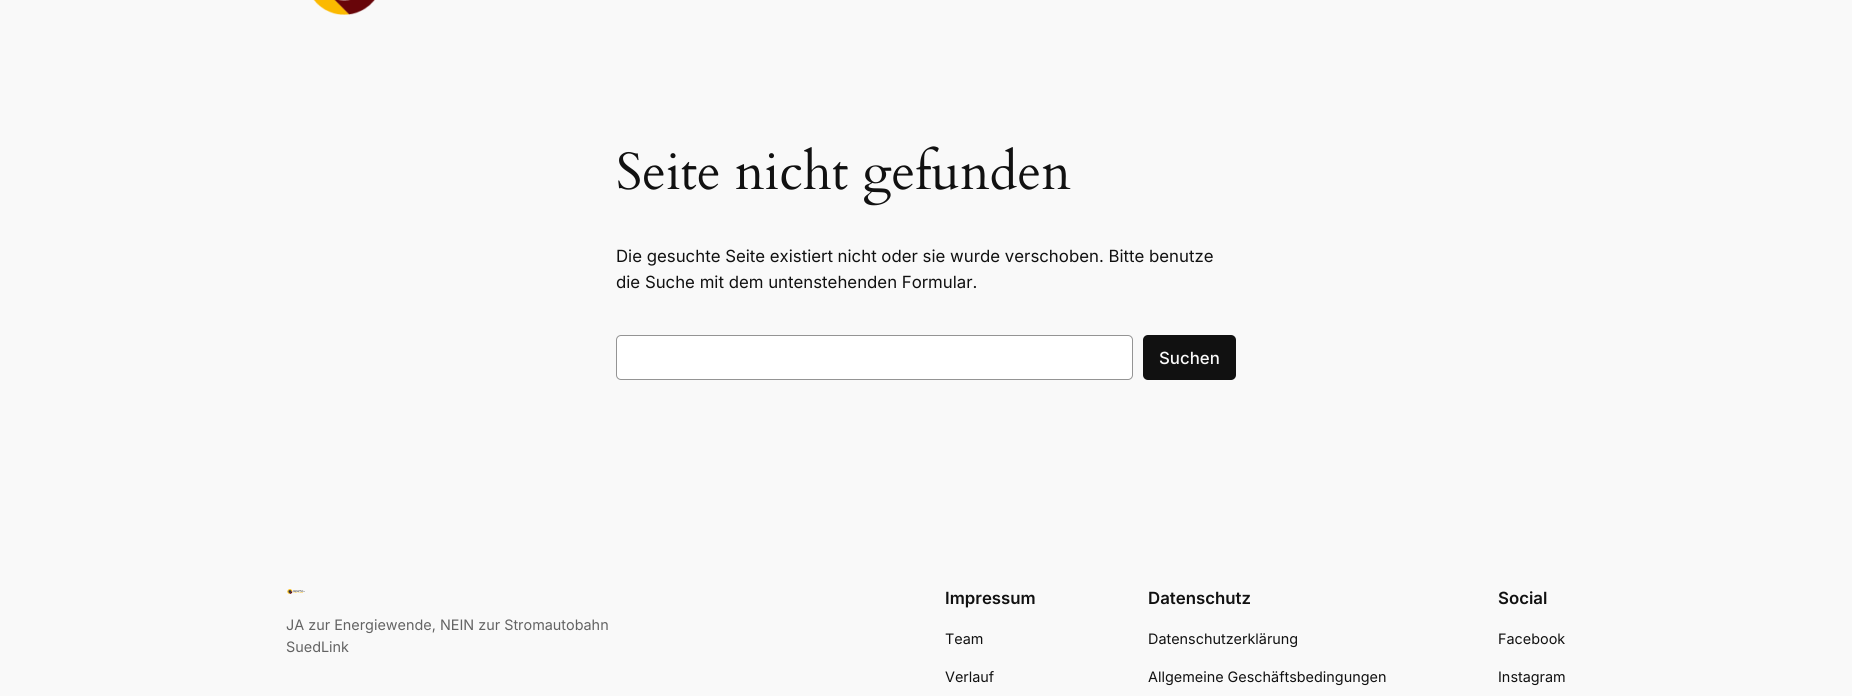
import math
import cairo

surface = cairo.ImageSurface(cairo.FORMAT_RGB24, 1852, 696)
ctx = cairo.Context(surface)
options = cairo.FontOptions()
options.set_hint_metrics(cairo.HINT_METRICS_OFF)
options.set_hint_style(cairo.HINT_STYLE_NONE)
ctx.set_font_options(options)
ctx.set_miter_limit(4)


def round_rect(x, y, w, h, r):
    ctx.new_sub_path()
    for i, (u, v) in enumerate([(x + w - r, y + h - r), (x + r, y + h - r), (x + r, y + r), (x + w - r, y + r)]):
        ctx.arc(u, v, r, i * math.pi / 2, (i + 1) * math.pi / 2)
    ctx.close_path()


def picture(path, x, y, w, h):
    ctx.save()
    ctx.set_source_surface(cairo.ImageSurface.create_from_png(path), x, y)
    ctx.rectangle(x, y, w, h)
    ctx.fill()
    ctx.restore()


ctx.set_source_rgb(0.976, 0.976, 0.976)
ctx.paint()
picture("img1.png", 313, 0, 62, 15)
ctx.select_font_face("Cardo")
ctx.set_font_size(52.25)
ctx.set_source_rgb(0.067, 0.067, 0.067)
ctx.move_to(616, 189)
ctx.show_text("Seite nicht gefunden")
ctx.select_font_face("Inter")
ctx.set_font_size(16.8)
ctx.move_to(616, 262)
ctx.show_text("Die gesuchte Seite existiert nicht oder sie wurde verschoben. Bitte benutze")
ctx.move_to(616, 288)
ctx.show_text("die Suche mit dem untenstehenden Formular.")
ctx.set_source_rgb(1, 1, 1)
round_rect(616.5, 335.5, 516, 44, 4.5)
ctx.fill_preserve()
ctx.set_source_rgb(0.58, 0.58, 0.58)
ctx.set_line_width(1)
ctx.stroke()
ctx.set_source_rgb(0.067, 0.067, 0.067)
round_rect(1143, 335, 93, 45, 5)
ctx.fill()
ctx.select_font_face("Inter Medium")
ctx.set_source_rgb(0.976, 0.976, 0.976)
ctx.move_to(1159, 364)
ctx.show_text("Suchen")
picture("img2.png", 287, 589, 18, 5)
ctx.select_font_face("Inter")
ctx.set_font_size(14.4)
ctx.set_source_rgb(0.388, 0.388, 0.388)
ctx.move_to(286, 630)
ctx.show_text("JA zur Energiewende, NEIN zur Stromautobahn")
ctx.move_to(286, 652)
ctx.show_text("SuedLink")
ctx.select_font_face("Inter SemiBold")
ctx.set_font_size(16.8)
ctx.set_source_rgb(0.067, 0.067, 0.067)
ctx.move_to(945, 604)
ctx.show_text("Impressum")
ctx.select_font_face("Inter")
ctx.set_font_size(14.4)
ctx.move_to(945, 644)
ctx.show_text("Team")
ctx.move_to(945, 682)
ctx.show_text("Verlauf")
ctx.select_font_face("Inter SemiBold")
ctx.set_font_size(16.8)
ctx.move_to(1148, 604)
ctx.show_text("Datenschutz")
ctx.select_font_face("Inter")
ctx.set_font_size(14.4)
ctx.move_to(1148, 644)
ctx.show_text("Datenschutzerklärung")
ctx.move_to(1148, 682)
ctx.show_text("Allgemeine Geschäftsbedingungen")
ctx.select_font_face("Inter SemiBold")
ctx.set_font_size(16.8)
ctx.move_to(1498, 604)
ctx.show_text("Social")
ctx.select_font_face("Inter")
ctx.set_font_size(14.4)
ctx.move_to(1498, 644)
ctx.show_text("Facebook")
ctx.move_to(1498, 682)
ctx.show_text("Instagram")
surface.write_to_png("page.png")
